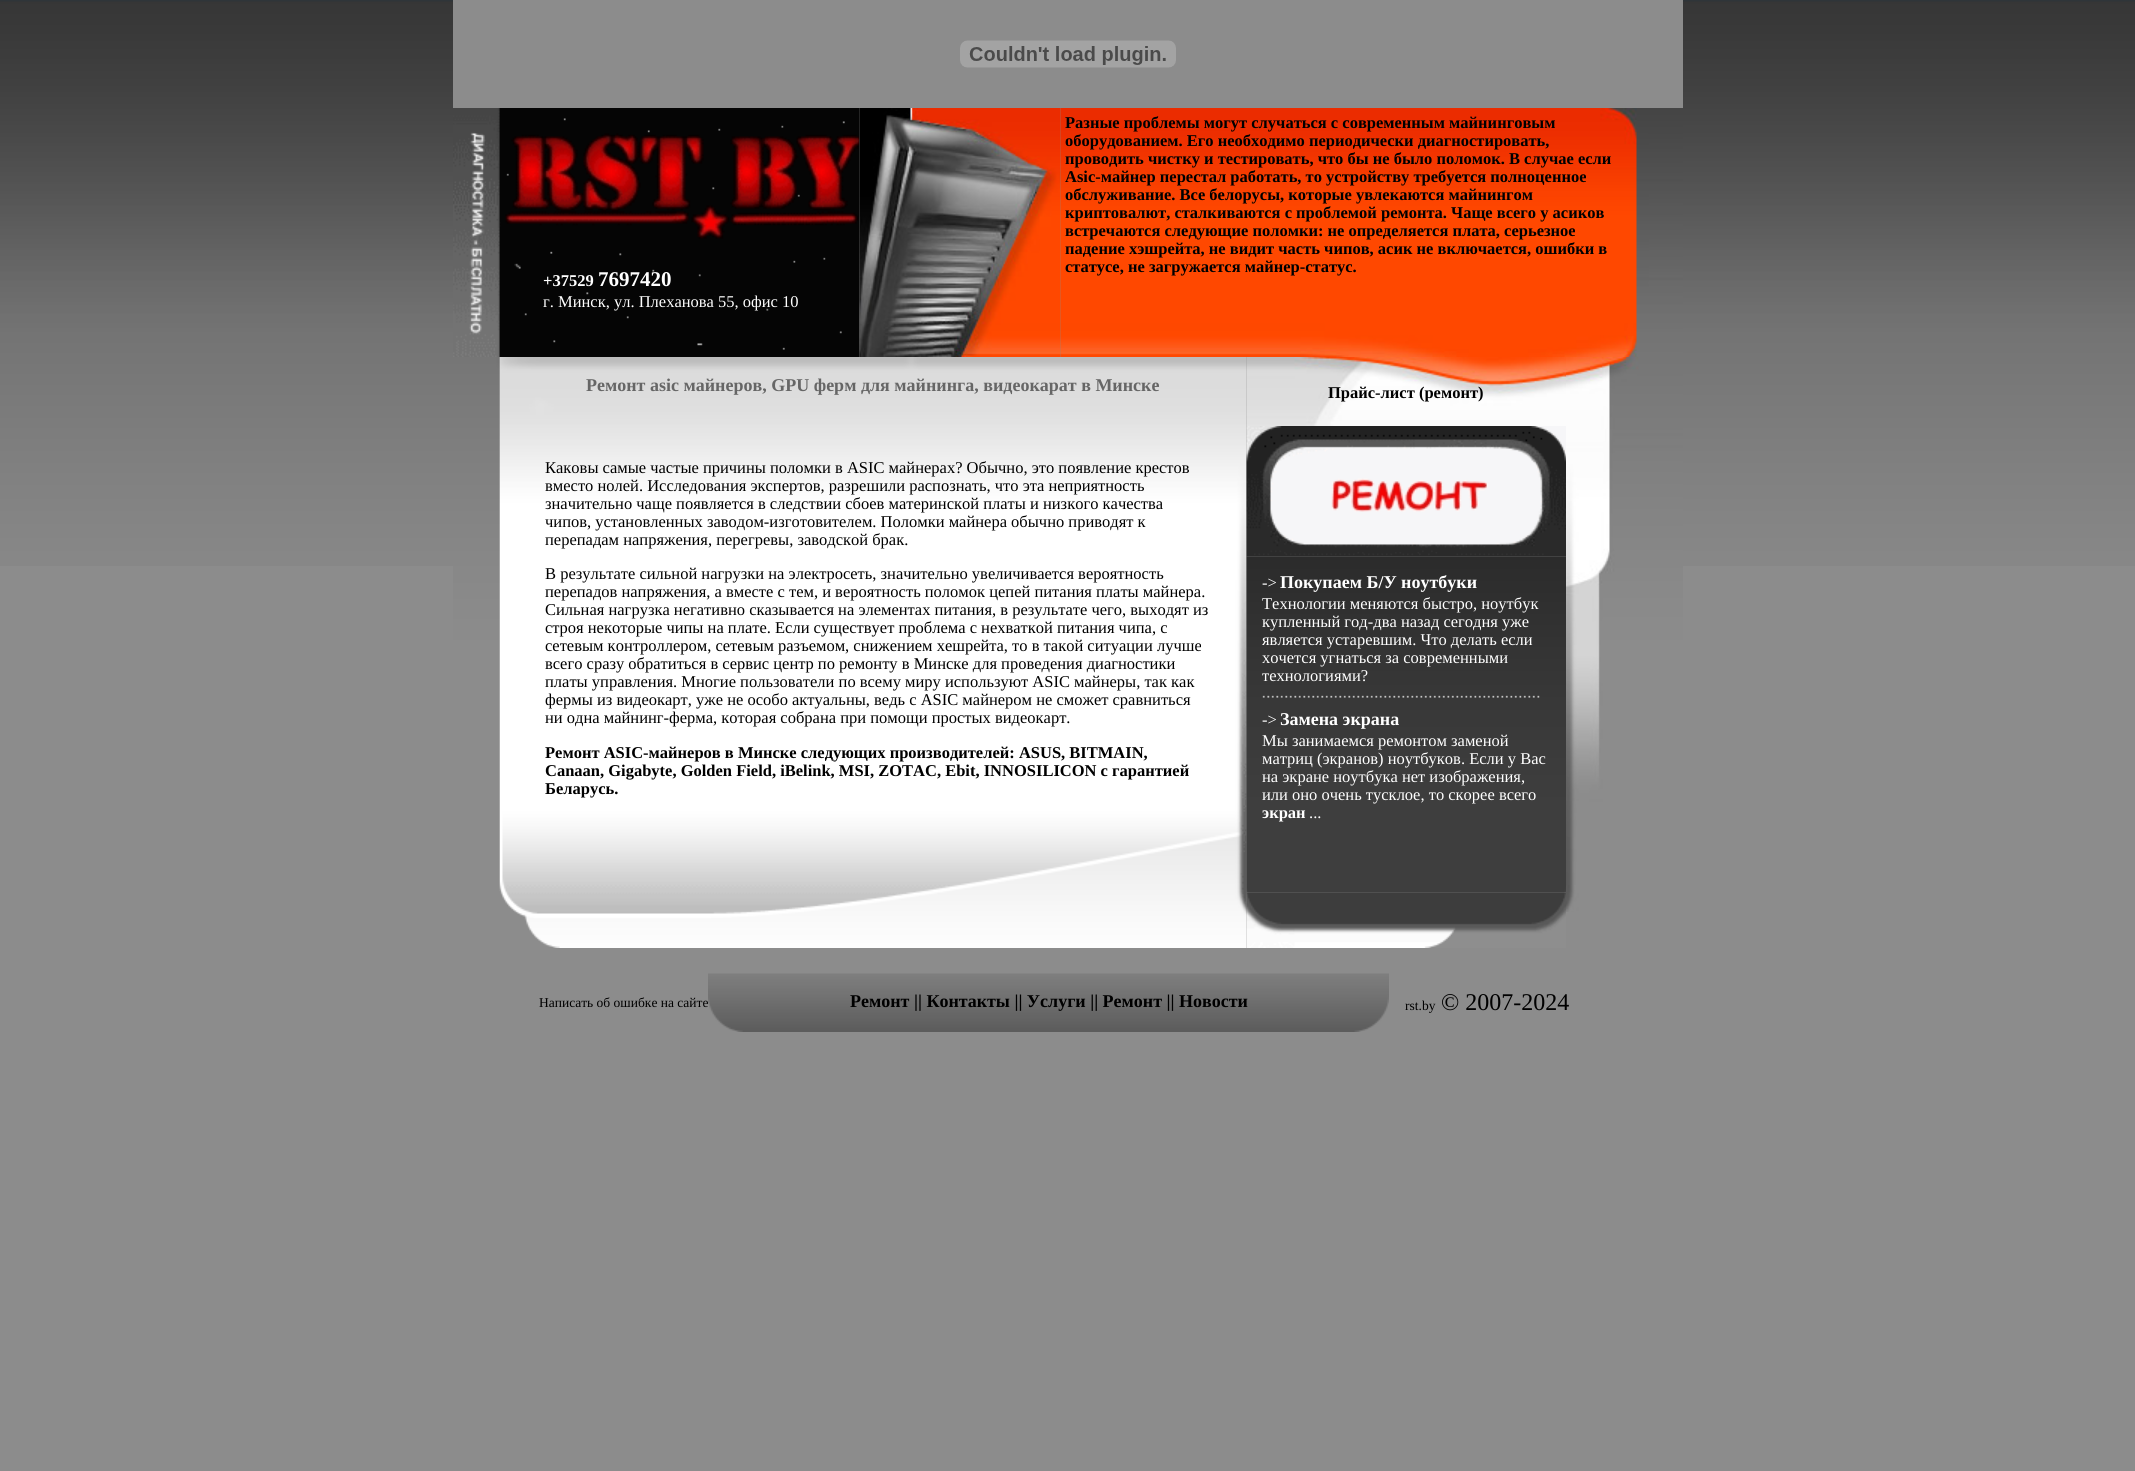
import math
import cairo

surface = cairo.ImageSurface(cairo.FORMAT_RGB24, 2135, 1471)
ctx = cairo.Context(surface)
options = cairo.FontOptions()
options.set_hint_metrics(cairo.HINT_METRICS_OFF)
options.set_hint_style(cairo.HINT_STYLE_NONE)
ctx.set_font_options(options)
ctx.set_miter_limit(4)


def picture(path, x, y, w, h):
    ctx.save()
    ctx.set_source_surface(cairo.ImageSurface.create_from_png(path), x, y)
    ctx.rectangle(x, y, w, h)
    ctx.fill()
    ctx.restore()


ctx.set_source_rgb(0.549, 0.549, 0.549)
ctx.paint()
picture("img1.png", 0, 0, 453, 566)
picture("img2.png", 960, 40, 216, 28)
picture("img3.png", 1683, 0, 452, 566)
picture("img6.png", 453, 108, 407, 249)
picture("img4.png", 859, 108, 202, 249)
picture("img5.png", 1060, 108, 623, 249)
ctx.select_font_face("Liberation Serif", cairo.FONT_SLANT_NORMAL, cairo.FONT_WEIGHT_BOLD)
ctx.set_font_size(16.5)
ctx.set_source_rgb(0, 0, 0)
ctx.move_to(1065, 128)
ctx.show_text("Разные проблемы могут случаться с современным майнинговым")
ctx.move_to(1065, 146)
ctx.show_text("оборудованием. Его необходимо периодически диагностировать,")
ctx.move_to(1065, 164)
ctx.show_text("проводить чистку и тестировать, что бы не было поломок. В случае если")
ctx.move_to(1065, 182)
ctx.show_text("Asic-майнер перестал работать, то устройству требуется полноценное")
ctx.move_to(1065, 200)
ctx.show_text("обслуживание. Все белорусы, которые увлекаются майнингом")
ctx.move_to(1065, 218)
ctx.show_text("криптовалют, сталкиваются с проблемой ремонта. Чаще всего у асиков")
ctx.move_to(1065, 236)
ctx.show_text("встречаются следующие поломки: не определяется плата, серьезное")
ctx.move_to(1065, 254)
ctx.show_text("падение хэшрейта, не видит часть чипов, асик не включается, ошибки в")
ctx.move_to(1065, 272)
ctx.show_text("статусе, не загружается майнер-статус.")
ctx.set_source_rgb(1, 1, 1)
ctx.move_to(543, 286)
ctx.show_text("+37529")
ctx.set_font_size(21)
ctx.move_to(598, 286)
ctx.show_text("7697420")
ctx.select_font_face("Liberation Serif")
ctx.set_font_size(16.5)
ctx.move_to(543, 307)
ctx.show_text("г. Минск, ул. Плеханова 55, офис 10")
picture("img8.png", 499, 357, 748, 69)
picture("img9.png", 499, 426, 748, 522)
picture("img7.png", 453, 357, 47, 533)
ctx.select_font_face("Liberation Serif", cairo.FONT_SLANT_NORMAL, cairo.FONT_WEIGHT_BOLD)
ctx.set_font_size(18)
ctx.set_source_rgb(0.4, 0.4, 0.4)
ctx.move_to(586, 391)
ctx.show_text("Ремонт asic майнеров, GPU ферм для майнинга, видеокарат в Минске")
ctx.select_font_face("Liberation Serif")
ctx.set_font_size(16.5)
ctx.set_source_rgb(0, 0, 0)
ctx.move_to(545, 473)
ctx.show_text("Каковы самые частые причины поломки в ASIC майнерах? Обычно, это появление крестов")
ctx.move_to(545, 491)
ctx.show_text("вместо нолей. Исследования экспертов, разрешили распознать, что эта неприятность")
ctx.move_to(545, 509)
ctx.show_text("значительно чаще появляется в следствии сбоев материнской платы и низкого качества")
ctx.move_to(545, 527)
ctx.show_text("чипов, установленных заводом-изготовителем. Поломки майнера обычно приводят к")
ctx.move_to(545, 545)
ctx.show_text("перепадам напряжения, перегревы, заводской брак.")
ctx.move_to(545, 579)
ctx.show_text("В результате сильной нагрузки на электросеть, значительно увеличивается вероятность")
ctx.move_to(545, 597)
ctx.show_text("перепадов напряжения, а вместе с тем, и вероятность поломок цепей питания платы майнера.")
ctx.move_to(545, 615)
ctx.show_text("Сильная нагрузка негативно сказывается на элементах питания, в результате чего, выходят из")
ctx.move_to(545, 633)
ctx.show_text("строя некоторые чипы на плате. Если существует проблема с нехваткой питания чипа, с")
ctx.move_to(545, 651)
ctx.show_text("сетевым контроллером, сетевым разъемом, снижением хешрейта, то в такой ситуации лучше")
ctx.move_to(545, 669)
ctx.show_text("всего сразу обратиться в сервис центр по ремонту в Минске для проведения диагностики")
ctx.move_to(545, 687)
ctx.show_text("платы управления. Многие пользователи по всему миру используют ASIC майнеры, так как")
ctx.move_to(545, 705)
ctx.show_text("фермы из видеокарт, уже не особо актуальны, ведь с ASIC майнером не сможет сравниться")
ctx.move_to(545, 723)
ctx.show_text("ни одна майнинг-ферма, которая собрана при помощи простых видеокарт.")
ctx.select_font_face("Liberation Serif", cairo.FONT_SLANT_NORMAL, cairo.FONT_WEIGHT_BOLD)
ctx.move_to(545, 758)
ctx.show_text("Ремонт ASIC-майнеров в Минске следующих производителей: ASUS, BITMAIN,")
ctx.move_to(545, 776)
ctx.show_text("Canaan, Gigabyte, Golden Field, iBelink, MSI, ZOTAC, Ebit, INNOSILICON с гарантией")
ctx.move_to(545, 794)
ctx.show_text("Беларусь.")
picture("img10.png", 1246, 357, 320, 69)
ctx.move_to(1328, 398)
ctx.show_text("Прайс-лист (ремонт)")
picture("img11.png", 1566, 357, 117, 555)
picture("img13.png", 1246, 556, 320, 337)
picture("img12.png", 1246, 426, 320, 131)
ctx.select_font_face("Liberation Serif")
ctx.set_source_rgb(1, 1, 1)
ctx.move_to(1262, 588)
ctx.show_text("->")
ctx.select_font_face("Liberation Serif", cairo.FONT_SLANT_NORMAL, cairo.FONT_WEIGHT_BOLD)
ctx.set_font_size(18)
ctx.move_to(1280, 588)
ctx.show_text("Покупаем Б/У ноутбуки")
ctx.select_font_face("Liberation Serif")
ctx.set_font_size(16.5)
ctx.move_to(1262, 609)
ctx.show_text("Технологии меняются быстро, ноутбук")
ctx.move_to(1262, 627)
ctx.show_text("купленный год-два назад сегодня уже")
ctx.move_to(1262, 645)
ctx.show_text("является устаревшим. Что делать если")
ctx.move_to(1262, 663)
ctx.show_text("хочется угнаться за современными")
ctx.move_to(1262, 681)
ctx.show_text("технологиями?")
picture("img14.png", 1262, 695, 278, 3)
ctx.move_to(1262, 725)
ctx.show_text("->")
ctx.select_font_face("Liberation Serif", cairo.FONT_SLANT_NORMAL, cairo.FONT_WEIGHT_BOLD)
ctx.set_font_size(18)
ctx.move_to(1280, 725)
ctx.show_text("Замена экрана")
ctx.select_font_face("Liberation Serif")
ctx.set_font_size(16.5)
ctx.move_to(1262, 746)
ctx.show_text("Мы занимаемся ремонтом заменой")
ctx.move_to(1262, 764)
ctx.show_text("матриц (экранов) ноутбуков. Если у Вас")
ctx.move_to(1262, 782)
ctx.show_text("на экране ноутбука нет изображения,")
ctx.move_to(1262, 800)
ctx.show_text("или оно очень тусклое, то скорее всего")
ctx.select_font_face("Liberation Serif", cairo.FONT_SLANT_NORMAL, cairo.FONT_WEIGHT_BOLD)
ctx.move_to(1262, 818)
ctx.show_text("экран")
ctx.select_font_face("Liberation Serif")
ctx.move_to(1309, 818)
ctx.show_text("...")
picture("img15.png", 1246, 892, 320, 56)
picture("img16.png", 708, 973, 681, 59)
ctx.set_font_size(13.5)
ctx.set_source_rgb(0, 0, 0)
ctx.move_to(539, 1007)
ctx.show_text("Написать об ошибке на сайте")
ctx.select_font_face("Liberation Serif", cairo.FONT_SLANT_NORMAL, cairo.FONT_WEIGHT_BOLD)
ctx.set_font_size(18)
ctx.move_to(850, 1007)
ctx.show_text("Ремонт || Контакты || Услуги || Ремонт || Новости")
ctx.select_font_face("Liberation Serif")
ctx.set_font_size(13.5)
ctx.move_to(1405, 1010)
ctx.show_text("rst.by")
ctx.set_font_size(24)
ctx.move_to(1441, 1010)
ctx.show_text("© 2007-2024")
surface.write_to_png("page.png")
